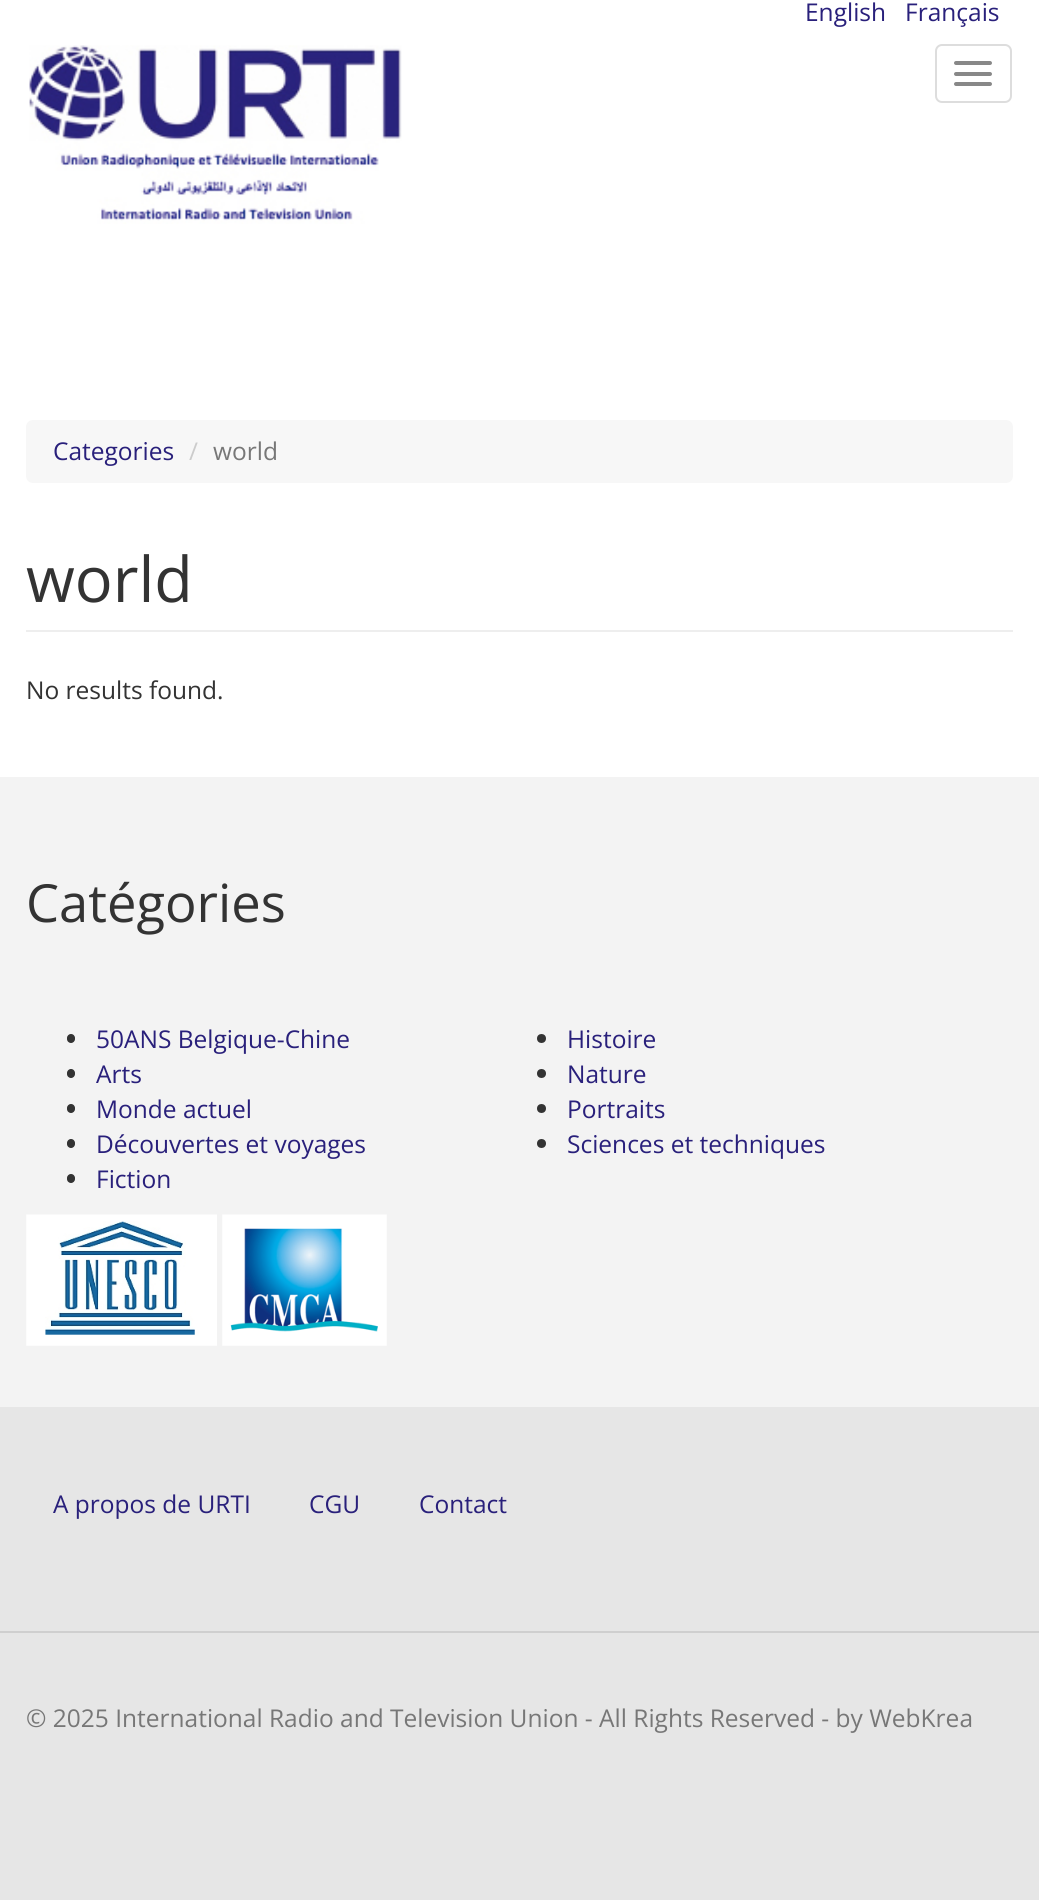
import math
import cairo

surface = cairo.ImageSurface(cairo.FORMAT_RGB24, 1039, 1900)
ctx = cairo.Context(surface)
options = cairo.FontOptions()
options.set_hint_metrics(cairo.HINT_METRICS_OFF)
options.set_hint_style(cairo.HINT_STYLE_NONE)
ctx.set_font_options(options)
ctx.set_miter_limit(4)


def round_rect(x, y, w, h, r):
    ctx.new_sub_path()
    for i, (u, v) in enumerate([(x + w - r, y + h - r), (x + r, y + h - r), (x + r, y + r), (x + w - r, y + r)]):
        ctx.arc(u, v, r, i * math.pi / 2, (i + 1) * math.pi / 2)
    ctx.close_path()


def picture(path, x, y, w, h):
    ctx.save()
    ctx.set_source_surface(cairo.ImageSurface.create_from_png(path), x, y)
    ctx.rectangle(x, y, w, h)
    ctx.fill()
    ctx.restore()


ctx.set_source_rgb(1, 1, 1)
ctx.paint()
ctx.select_font_face("Open Sans")
ctx.set_font_size(24.5)
ctx.set_source_rgb(0.161, 0.125, 0.482)
ctx.move_to(805, 21)
ctx.show_text("English")
ctx.move_to(905, 21)
ctx.show_text("Français")
picture("img1.png", 29, 45, 373, 179)
round_rect(936, 45, 75, 57, 6)
ctx.set_source_rgb(0.867, 0.867, 0.867)
ctx.stroke()
ctx.set_source_rgb(0.533, 0.533, 0.533)
round_rect(954, 61, 38, 4, 2)
ctx.fill()
round_rect(954, 72, 38, 4, 2)
ctx.fill()
round_rect(954, 82, 38, 4, 2)
ctx.fill()
ctx.set_source_rgb(0.965, 0.965, 0.965)
round_rect(26, 420, 987, 63, 7)
ctx.fill()
ctx.set_source_rgb(0.161, 0.125, 0.482)
ctx.move_to(53, 460)
ctx.show_text("Categories")
ctx.set_source_rgb(0.8, 0.8, 0.8)
ctx.move_to(189, 460)
ctx.show_text("/")
ctx.set_source_rgb(0.467, 0.467, 0.467)
ctx.move_to(213, 460)
ctx.show_text("world")
ctx.set_source_rgb(0.933, 0.933, 0.933)
ctx.rectangle(26, 630, 987, 2)
ctx.fill()
ctx.set_font_size(63)
ctx.set_source_rgb(0.2, 0.2, 0.2)
ctx.move_to(26, 602)
ctx.show_text("world")
ctx.set_font_size(24.5)
ctx.move_to(26, 699)
ctx.show_text("No results found.")
ctx.set_source_rgb(0.953, 0.953, 0.953)
ctx.rectangle(0, 777, 1039, 630)
ctx.fill()
ctx.set_font_size(52.5)
ctx.set_source_rgb(0.2, 0.2, 0.2)
ctx.move_to(26, 922)
ctx.show_text("Catégories")
round_rect(67, 1034, 8, 9, 4)
ctx.fill()
ctx.set_font_size(24.5)
ctx.set_source_rgb(0.161, 0.125, 0.482)
ctx.move_to(96, 1048)
ctx.show_text("50ANS Belgique-Chine")
ctx.set_source_rgb(0.2, 0.2, 0.2)
ctx.new_path()
ctx.arc(541.5, 1038.5, 4.5, 0, 2 * math.pi)
ctx.fill()
ctx.set_source_rgb(0.161, 0.125, 0.482)
ctx.move_to(567, 1048)
ctx.show_text("Histoire")
ctx.set_source_rgb(0.2, 0.2, 0.2)
round_rect(67, 1069, 8, 9, 4)
ctx.fill()
ctx.set_source_rgb(0.161, 0.125, 0.482)
ctx.move_to(96, 1083)
ctx.show_text("Arts")
ctx.set_source_rgb(0.2, 0.2, 0.2)
ctx.new_path()
ctx.arc(541.5, 1073.5, 4.5, 0, 2 * math.pi)
ctx.fill()
ctx.set_source_rgb(0.161, 0.125, 0.482)
ctx.move_to(567, 1083)
ctx.show_text("Nature")
ctx.set_source_rgb(0.2, 0.2, 0.2)
round_rect(67, 1104, 8, 9, 4)
ctx.fill()
ctx.set_source_rgb(0.161, 0.125, 0.482)
ctx.move_to(96, 1118)
ctx.show_text("Monde actuel")
ctx.set_source_rgb(0.2, 0.2, 0.2)
ctx.new_path()
ctx.arc(541.5, 1108.5, 4.5, 0, 2 * math.pi)
ctx.fill()
ctx.set_source_rgb(0.161, 0.125, 0.482)
ctx.move_to(567, 1118)
ctx.show_text("Portraits")
ctx.set_source_rgb(0.2, 0.2, 0.2)
round_rect(67, 1139, 8, 9, 4)
ctx.fill()
ctx.set_source_rgb(0.161, 0.125, 0.482)
ctx.move_to(96, 1153)
ctx.show_text("Découvertes et voyages")
ctx.set_source_rgb(0.2, 0.2, 0.2)
ctx.new_path()
ctx.arc(541.5, 1143.5, 4.5, 0, 2 * math.pi)
ctx.fill()
ctx.set_source_rgb(0.161, 0.125, 0.482)
ctx.move_to(567, 1153)
ctx.show_text("Sciences et techniques")
ctx.set_source_rgb(0.2, 0.2, 0.2)
round_rect(67, 1174, 8, 9, 4)
ctx.fill()
ctx.set_source_rgb(0.161, 0.125, 0.482)
ctx.move_to(96, 1188)
ctx.show_text("Fiction")
picture("img2.png", 26, 1214, 191, 132)
picture("img3.png", 222, 1214, 165, 132)
ctx.set_source_rgb(0.902, 0.902, 0.902)
ctx.rectangle(0, 1407, 1039, 493)
ctx.fill()
ctx.set_source_rgb(0.161, 0.125, 0.482)
ctx.move_to(53, 1513)
ctx.show_text("A propos de URTI")
ctx.move_to(309, 1513)
ctx.show_text("CGU")
ctx.move_to(419, 1513)
ctx.show_text("Contact")
ctx.set_source_rgb(0.812, 0.812, 0.812)
ctx.rectangle(0, 1631, 1039, 2)
ctx.fill()
ctx.set_source_rgb(0.467, 0.467, 0.467)
ctx.move_to(26, 1727)
ctx.show_text("© 2025 International Radio and Television Union - All Rights Reserved - by WebKrea")
surface.write_to_png("page.png")
